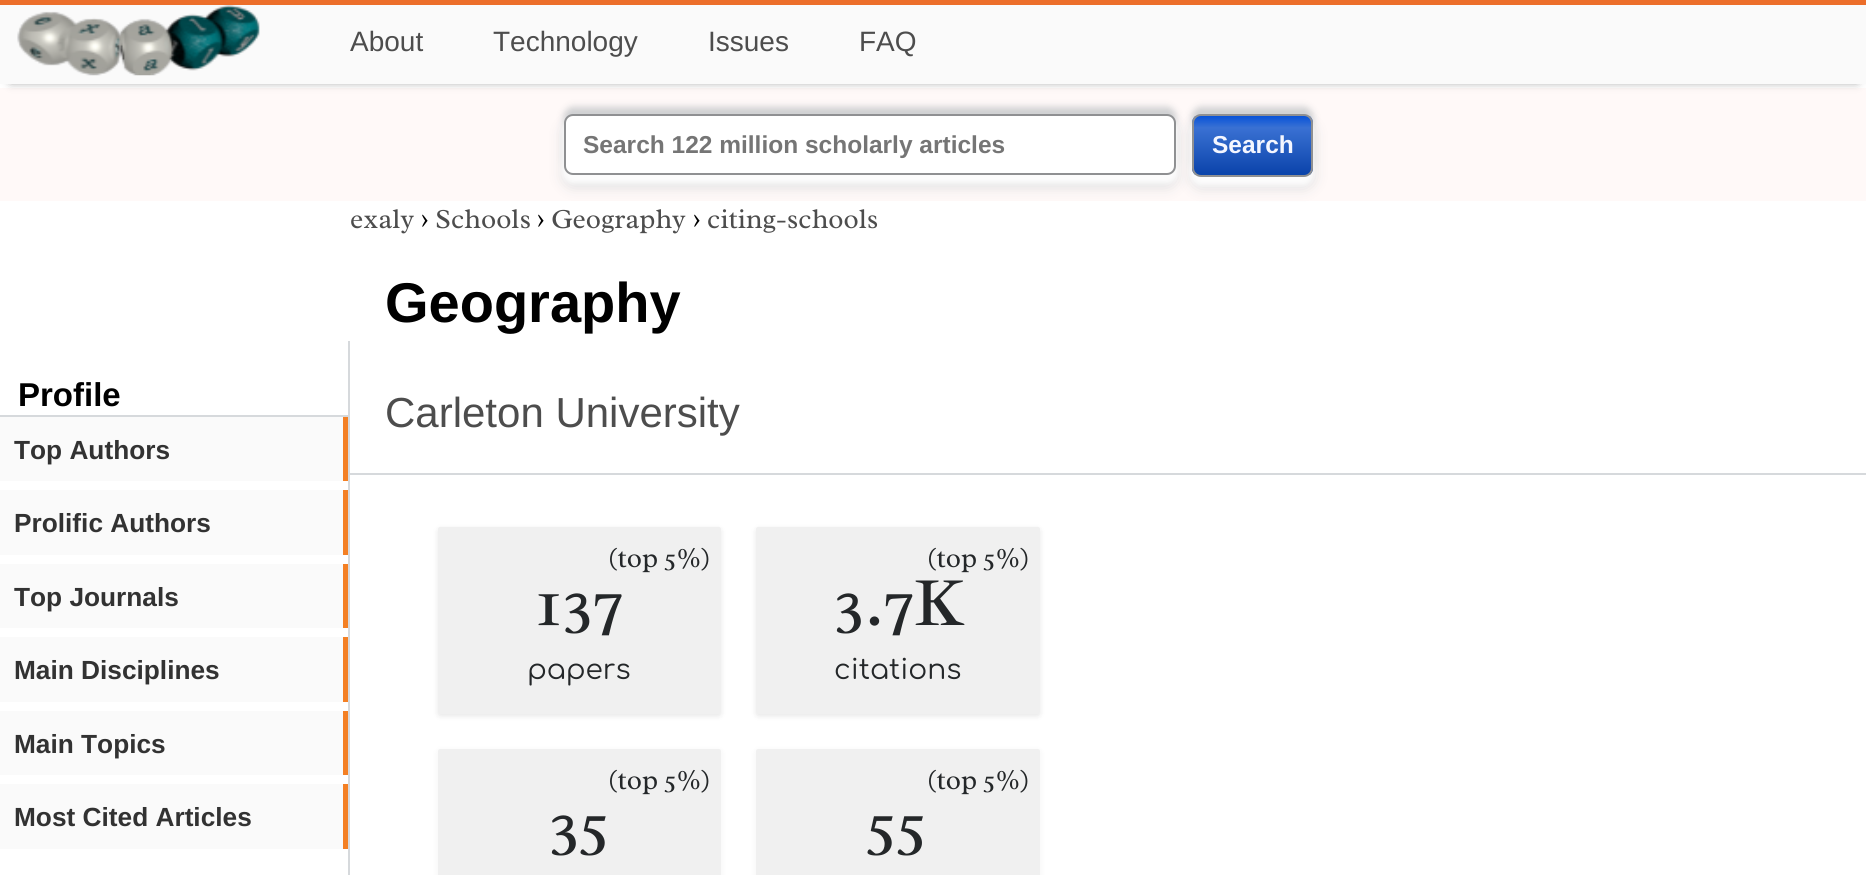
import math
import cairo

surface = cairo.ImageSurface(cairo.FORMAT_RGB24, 1866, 875)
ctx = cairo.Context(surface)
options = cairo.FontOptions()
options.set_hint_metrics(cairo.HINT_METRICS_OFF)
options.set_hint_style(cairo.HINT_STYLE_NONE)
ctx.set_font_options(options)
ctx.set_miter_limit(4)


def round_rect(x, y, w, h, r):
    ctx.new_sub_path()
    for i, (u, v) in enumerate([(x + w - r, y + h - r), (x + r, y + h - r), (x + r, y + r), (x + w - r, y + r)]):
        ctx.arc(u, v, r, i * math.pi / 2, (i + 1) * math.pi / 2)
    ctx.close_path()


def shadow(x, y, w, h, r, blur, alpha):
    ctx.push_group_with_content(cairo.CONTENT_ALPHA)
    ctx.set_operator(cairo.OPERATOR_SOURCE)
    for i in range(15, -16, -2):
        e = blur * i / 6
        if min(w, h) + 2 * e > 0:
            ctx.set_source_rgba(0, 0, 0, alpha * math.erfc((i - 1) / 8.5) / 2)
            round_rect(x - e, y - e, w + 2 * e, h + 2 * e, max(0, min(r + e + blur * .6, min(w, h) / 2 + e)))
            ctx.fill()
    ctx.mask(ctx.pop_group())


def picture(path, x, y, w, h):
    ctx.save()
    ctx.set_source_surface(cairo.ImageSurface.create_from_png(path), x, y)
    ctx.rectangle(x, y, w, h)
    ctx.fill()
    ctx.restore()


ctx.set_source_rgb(1, 1, 1)
ctx.paint()
ctx.set_source_rgb(1, 0.976, 0.969)
ctx.rectangle(0, 88, 1866, 113)
ctx.fill()
ctx.set_source_rgb(0.467, 0.467, 0.467)
shadow(11, 18, 1846, 63, 0, 5, 1)
ctx.set_source_rgb(0.98, 0.98, 0.98)
ctx.rectangle(0, 5, 1866, 79)
ctx.fill()
ctx.set_source_rgb(0.925, 0.431, 0.165)
ctx.rectangle(0, 0, 1866, 5)
ctx.fill()
picture("img1.png", 17, 5, 243, 71)
ctx.select_font_face("Liberation Sans")
ctx.set_font_size(28)
ctx.set_source_rgb(0.302, 0.302, 0.302)
ctx.move_to(350, 51)
ctx.show_text("About")
ctx.move_to(493, 51)
ctx.show_text("Technology")
ctx.move_to(708, 51)
ctx.show_text("Issues")
ctx.move_to(859, 51)
ctx.show_text("FAQ")
ctx.set_source_rgb(0.808, 0.812, 0.82)
shadow(564, 107, 612, 61, 9, 3.5, 1)
ctx.set_source_rgb(0.839, 0.843, 0.851)
shadow(564, 124, 612, 62, 9, 7, 1)
ctx.set_source_rgb(0.988, 0.988, 0.988)
shadow(562, 119, 616, 65, 11, 2.5, 1)
ctx.set_source_rgb(1, 1, 1)
round_rect(565, 115, 610, 59, 8)
ctx.fill_preserve()
ctx.set_source_rgb(0.561, 0.565, 0.573)
ctx.stroke()
ctx.select_font_face("Liberation Sans", cairo.FONT_SLANT_NORMAL, cairo.FONT_WEIGHT_BOLD)
ctx.set_font_size(24.5)
ctx.set_source_rgb(0.459, 0.459, 0.459)
ctx.move_to(583, 153)
ctx.show_text("Search 122 million scholarly articles")
ctx.set_source_rgb(0.808, 0.812, 0.82)
shadow(1192, 107, 121, 63, 9, 3.5, 1)
ctx.set_source_rgb(0.839, 0.843, 0.851)
shadow(1192, 124, 121, 63, 9, 7, 1)
ctx.set_source_rgb(0.988, 0.988, 0.988)
shadow(1190, 119, 124, 67, 11, 2.5, 1)
ctx.save()
round_rect(1192, 114, 121, 63, 9)
ctx.clip()
gradient = cairo.LinearGradient(1252, 175, 1252, 116)
gradient.add_color_stop_rgba(0, 0.039, 0.263, 0.667, 1)
gradient.add_color_stop_rgba(0.8, 0.227, 0.443, 0.827, 1)
gradient.add_color_stop_rgba(1, 0.031, 0.325, 0.847, 1)
ctx.set_source(gradient)
ctx.rectangle(1192, 116, 121, 59)
ctx.fill()
ctx.restore()
round_rect(1193, 115, 119, 61, 8)
ctx.set_source_rgb(0.561, 0.565, 0.573)
ctx.stroke()
ctx.set_source_rgb(0.957, 0.961, 1)
ctx.move_to(1212, 153)
ctx.show_text("Search")
ctx.select_font_face("Radley")
ctx.set_font_size(28)
ctx.set_source_rgb(0.302, 0.302, 0.302)
ctx.move_to(350, 228)
ctx.show_text("exaly")
ctx.set_source_rgb(0, 0, 0)
ctx.move_to(421, 228)
ctx.show_text("›")
ctx.set_source_rgb(0.302, 0.302, 0.302)
ctx.move_to(435, 228)
ctx.show_text("Schools")
ctx.set_source_rgb(0, 0, 0)
ctx.move_to(537, 228)
ctx.show_text("›")
ctx.set_source_rgb(0.302, 0.302, 0.302)
ctx.move_to(551, 228)
ctx.show_text("Geography")
ctx.set_source_rgb(0, 0, 0)
ctx.move_to(693, 228)
ctx.show_text("›")
ctx.set_source_rgb(0.302, 0.302, 0.302)
ctx.move_to(707, 228)
ctx.show_text("citing-schools")
ctx.set_source_rgb(0.839, 0.851, 0.863)
ctx.rectangle(350, 473, 1516, 2)
ctx.fill()
ctx.select_font_face("Liberation Sans", cairo.FONT_SLANT_NORMAL, cairo.FONT_WEIGHT_BOLD)
ctx.set_font_size(56)
ctx.set_source_rgb(0, 0, 0)
ctx.move_to(385, 322)
ctx.show_text("Geography")
ctx.select_font_face("Liberation Sans")
ctx.set_font_size(42)
ctx.set_source_rgb(0.302, 0.302, 0.302)
ctx.move_to(385, 427)
ctx.show_text("Carleton University")
ctx.set_source_rgb(0.839, 0.851, 0.863)
ctx.rectangle(348, 341, 2, 534)
ctx.fill()
ctx.rectangle(0, 415, 348, 2)
ctx.fill()
ctx.select_font_face("Liberation Sans", cairo.FONT_SLANT_NORMAL, cairo.FONT_WEIGHT_BOLD)
ctx.set_font_size(33)
ctx.set_source_rgb(0, 0, 0)
ctx.move_to(18, 406)
ctx.show_text("Profile")
ctx.set_source_rgb(0.98, 0.98, 0.98)
ctx.rectangle(0, 417, 343, 64)
ctx.fill()
ctx.set_source_rgb(0.957, 0.502, 0.141)
ctx.rectangle(343, 417, 5, 64)
ctx.fill()
ctx.set_font_size(26.25)
ctx.set_source_rgb(0.196, 0.196, 0.196)
ctx.move_to(14, 459)
ctx.show_text("Top Authors")
ctx.set_source_rgb(0.98, 0.98, 0.98)
ctx.rectangle(0, 490, 343, 65)
ctx.fill()
ctx.set_source_rgb(0.957, 0.502, 0.141)
ctx.rectangle(343, 490, 5, 65)
ctx.fill()
ctx.set_source_rgb(0.196, 0.196, 0.196)
ctx.move_to(14, 532)
ctx.show_text("Prolific Authors")
ctx.set_source_rgb(0.98, 0.98, 0.98)
ctx.rectangle(0, 564, 343, 64)
ctx.fill()
ctx.set_source_rgb(0.957, 0.502, 0.141)
ctx.rectangle(343, 564, 5, 64)
ctx.fill()
ctx.set_source_rgb(0.196, 0.196, 0.196)
ctx.move_to(14, 606)
ctx.show_text("Top Journals")
ctx.set_source_rgb(0.98, 0.98, 0.98)
ctx.rectangle(0, 637, 343, 65)
ctx.fill()
ctx.set_source_rgb(0.957, 0.502, 0.141)
ctx.rectangle(343, 637, 5, 65)
ctx.fill()
ctx.set_source_rgb(0.196, 0.196, 0.196)
ctx.move_to(14, 679)
ctx.show_text("Main Disciplines")
ctx.set_source_rgb(0.98, 0.98, 0.98)
ctx.rectangle(0, 711, 343, 64)
ctx.fill()
ctx.set_source_rgb(0.957, 0.502, 0.141)
ctx.rectangle(343, 711, 5, 64)
ctx.fill()
ctx.set_source_rgb(0.196, 0.196, 0.196)
ctx.move_to(14, 753)
ctx.show_text("Main Topics")
ctx.set_source_rgb(0.98, 0.98, 0.98)
ctx.rectangle(0, 784, 343, 65)
ctx.fill()
ctx.set_source_rgb(0.957, 0.502, 0.141)
ctx.rectangle(343, 784, 5, 65)
ctx.fill()
ctx.set_source_rgb(0.196, 0.196, 0.196)
ctx.move_to(14, 826)
ctx.show_text("Most Cited Articles")
ctx.set_source_rgb(0, 0, 0)
shadow(438, 529, 283, 187, 2, 3.5, 0.05)
shadow(438, 529, 283, 187, 2, 2, 0.05)
ctx.set_source_rgb(0.941, 0.941, 0.941)
round_rect(438, 527, 283, 187, 2)
ctx.fill()
ctx.select_font_face("Radley")
ctx.set_font_size(28)
ctx.set_source_rgb(0.141, 0.153, 0.161)
ctx.move_to(608, 567)
ctx.show_text("(top 5%)")
ctx.set_font_size(70)
ctx.move_to(536, 625)
ctx.show_text("137")
ctx.select_font_face("Comfortaa")
ctx.set_font_size(28)
ctx.move_to(527, 679)
ctx.show_text("papers")
ctx.set_source_rgb(0, 0, 0)
shadow(756, 529, 284, 187, 2, 3.5, 0.05)
shadow(756, 529, 284, 187, 2, 2, 0.05)
ctx.set_source_rgb(0.941, 0.941, 0.941)
round_rect(756, 527, 284, 187, 2)
ctx.fill()
ctx.select_font_face("Radley")
ctx.set_source_rgb(0.141, 0.153, 0.161)
ctx.move_to(927, 567)
ctx.show_text("(top 5%)")
ctx.set_font_size(70)
ctx.move_to(833, 625)
ctx.show_text("3.7K")
ctx.select_font_face("Comfortaa")
ctx.set_font_size(28)
ctx.move_to(834, 679)
ctx.show_text("citations")
ctx.set_source_rgb(0, 0, 0)
shadow(438, 751, 283, 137, 2, 3.5, 0.05)
ctx.set_source_rgb(0.941, 0.941, 0.941)
round_rect(438, 749, 283, 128, 2)
ctx.fill()
ctx.select_font_face("Radley")
ctx.set_source_rgb(0.141, 0.153, 0.161)
ctx.move_to(608, 789)
ctx.show_text("(top 5%)")
ctx.set_font_size(70)
ctx.move_to(548, 847)
ctx.show_text("35")
ctx.set_source_rgb(0, 0, 0)
shadow(756, 751, 284, 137, 2, 3.5, 0.05)
ctx.set_source_rgb(0.941, 0.941, 0.941)
round_rect(756, 749, 284, 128, 2)
ctx.fill()
ctx.set_font_size(28)
ctx.set_source_rgb(0.141, 0.153, 0.161)
ctx.move_to(927, 789)
ctx.show_text("(top 5%)")
ctx.set_font_size(70)
ctx.move_to(867, 847)
ctx.show_text("55")
surface.write_to_png("page.png")
